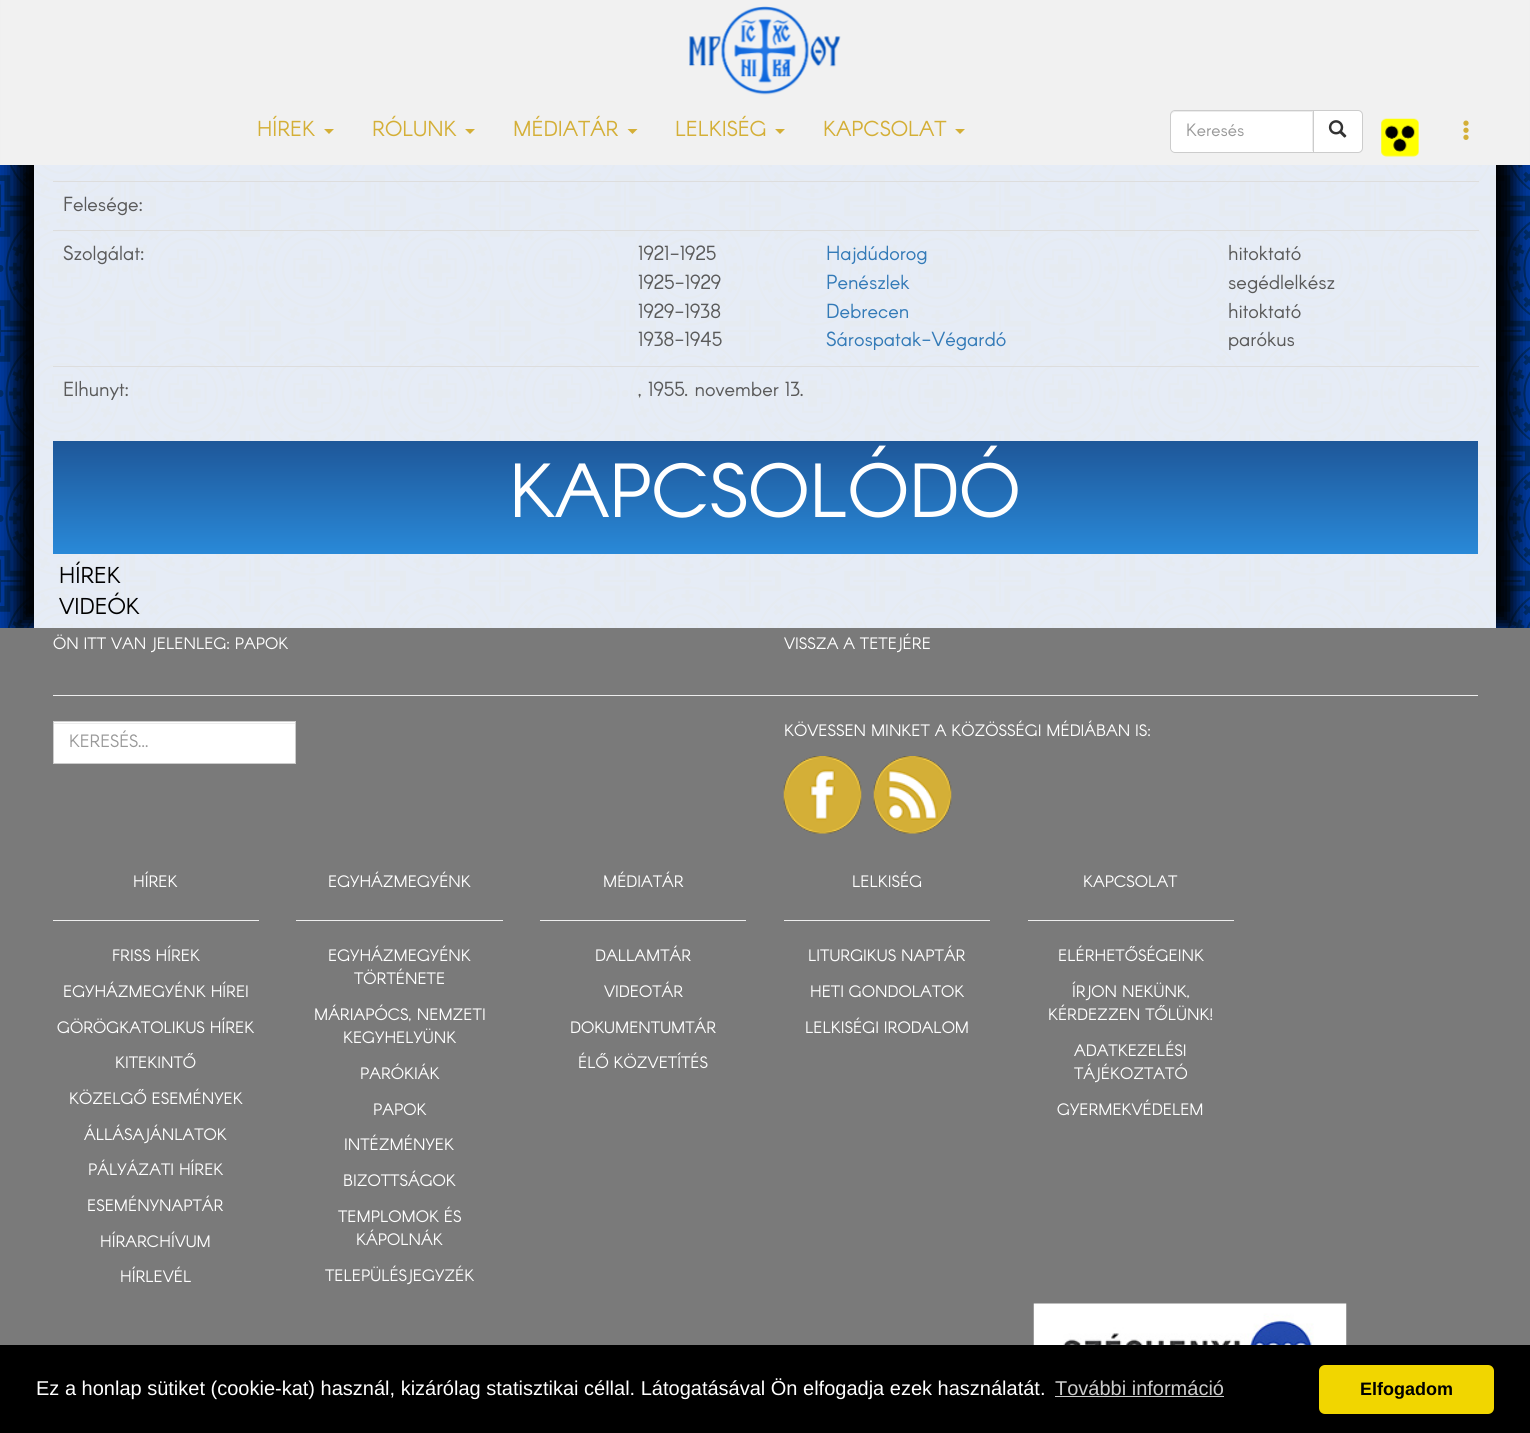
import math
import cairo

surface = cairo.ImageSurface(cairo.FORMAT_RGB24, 1530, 1433)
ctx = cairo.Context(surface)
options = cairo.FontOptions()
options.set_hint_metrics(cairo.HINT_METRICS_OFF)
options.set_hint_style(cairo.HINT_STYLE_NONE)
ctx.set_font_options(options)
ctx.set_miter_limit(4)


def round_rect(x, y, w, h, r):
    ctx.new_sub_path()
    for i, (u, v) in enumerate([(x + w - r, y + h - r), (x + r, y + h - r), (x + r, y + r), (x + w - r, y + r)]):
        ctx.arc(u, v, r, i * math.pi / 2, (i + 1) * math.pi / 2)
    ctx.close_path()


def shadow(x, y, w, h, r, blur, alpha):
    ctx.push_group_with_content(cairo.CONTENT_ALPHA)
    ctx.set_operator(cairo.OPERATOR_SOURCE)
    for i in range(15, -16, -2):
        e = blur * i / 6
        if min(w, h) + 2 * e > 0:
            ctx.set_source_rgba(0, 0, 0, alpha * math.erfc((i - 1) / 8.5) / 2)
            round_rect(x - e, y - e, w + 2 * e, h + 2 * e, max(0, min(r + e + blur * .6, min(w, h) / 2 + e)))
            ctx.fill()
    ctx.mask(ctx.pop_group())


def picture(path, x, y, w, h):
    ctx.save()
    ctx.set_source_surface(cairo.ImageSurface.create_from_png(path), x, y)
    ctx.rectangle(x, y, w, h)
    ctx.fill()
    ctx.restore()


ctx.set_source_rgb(1, 1, 1)
ctx.paint()
picture("img1.png", 0, 165, 1530, 463)
ctx.save()
ctx.set_fill_rule(cairo.FILL_RULE_EVEN_ODD)
ctx.new_path()
ctx.move_to(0, 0)
ctx.line_to(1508, 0)
ctx.line_to(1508, 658)
ctx.line_to(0, 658)
ctx.close_path()
ctx.move_to(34, -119)
ctx.line_to(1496, -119)
ctx.line_to(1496, 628)
ctx.line_to(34, 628)
ctx.close_path()
ctx.clip()
ctx.set_source_rgb(0, 0, 0)
shadow(15, -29, 1463, 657, 0, 9.5, 1)
ctx.restore()
ctx.save()
ctx.set_fill_rule(cairo.FILL_RULE_EVEN_ODD)
ctx.new_path()
ctx.move_to(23, 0)
ctx.line_to(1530, 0)
ctx.line_to(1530, 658)
ctx.line_to(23, 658)
ctx.close_path()
ctx.move_to(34, -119)
ctx.line_to(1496, -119)
ctx.line_to(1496, 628)
ctx.line_to(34, 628)
ctx.close_path()
ctx.clip()
ctx.set_source_rgb(0, 0, 0)
shadow(53, -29, 1462, 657, 0, 9.5, 1)
ctx.restore()
ctx.set_source_rgb(0.945, 0.945, 0.945)
ctx.rectangle(1, 0, 1528, 165)
ctx.fill()
picture("img2.png", 689, 6, 152, 89)
ctx.select_font_face("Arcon")
ctx.set_font_size(21.25)
ctx.set_source_rgb(0.831, 0.686, 0.216)
ctx.move_to(257, 136)
ctx.show_text("HÍREK")
ctx.new_path()
ctx.move_to(324, 129)
ctx.line_to(334, 129)
ctx.line_to(329, 134)
ctx.close_path()
ctx.fill()
ctx.move_to(372, 136)
ctx.show_text("RÓLUNK")
ctx.new_path()
ctx.move_to(465, 129)
ctx.line_to(475, 129)
ctx.line_to(470, 134)
ctx.close_path()
ctx.fill()
ctx.move_to(513, 136)
ctx.show_text("MÉDIATÁR")
ctx.new_path()
ctx.move_to(627.5, 129)
ctx.line_to(637.5, 129)
ctx.line_to(632.5, 134)
ctx.close_path()
ctx.fill()
ctx.move_to(675, 136)
ctx.show_text("LELKISÉG")
ctx.new_path()
ctx.move_to(775, 129)
ctx.line_to(785, 129)
ctx.line_to(780, 134)
ctx.close_path()
ctx.fill()
ctx.move_to(823, 136)
ctx.show_text("KAPCSOLAT")
ctx.new_path()
ctx.move_to(955, 129)
ctx.line_to(965, 129)
ctx.line_to(960, 134)
ctx.close_path()
ctx.fill()
ctx.set_source_rgb(1, 1, 1)
ctx.new_path()
ctx.move_to(1175, 110)
ctx.line_to(1314, 110)
ctx.line_to(1314, 153)
ctx.line_to(1175, 153)
ctx.curve_to(1172, 153, 1170, 151, 1170, 148)
ctx.line_to(1170, 115)
ctx.curve_to(1170, 112, 1172, 110, 1175, 110)
ctx.close_path()
ctx.fill()
ctx.set_source_rgb(0.925, 0.925, 0.925)
ctx.new_path()
ctx.move_to(1175, 112)
ctx.line_to(1312, 112)
ctx.line_to(1312, 151)
ctx.line_to(1313, 151)
ctx.line_to(1313, 111)
ctx.line_to(1175, 111)
ctx.curve_to(1173, 111, 1171, 113, 1171, 115)
ctx.line_to(1171, 116)
ctx.curve_to(1171, 114, 1173, 112, 1175, 112)
ctx.close_path()
ctx.fill()
ctx.new_path()
ctx.move_to(1175, 110.5)
ctx.line_to(1313.5, 110.5)
ctx.line_to(1313.5, 152.5)
ctx.line_to(1175, 152.5)
ctx.curve_to(1172.5, 152.5, 1170.5, 150.5, 1170.5, 148)
ctx.line_to(1170.5, 115)
ctx.curve_to(1170.5, 112.5, 1172.5, 110.5, 1175, 110.5)
ctx.close_path()
ctx.set_source_rgb(0.8, 0.8, 0.8)
ctx.set_line_width(1)
ctx.stroke()
ctx.set_font_size(17.5)
ctx.set_source_rgb(0.6, 0.6, 0.6)
ctx.move_to(1186, 136)
ctx.show_text("Keresés")
ctx.set_source_rgb(1, 1, 1)
ctx.new_path()
ctx.move_to(1313.5, 110.5)
ctx.line_to(1358, 110.5)
ctx.curve_to(1360.5, 110.5, 1362.5, 112.5, 1362.5, 115)
ctx.line_to(1362.5, 148)
ctx.curve_to(1362.5, 150.5, 1360.5, 152.5, 1358, 152.5)
ctx.line_to(1313.5, 152.5)
ctx.close_path()
ctx.fill_preserve()
ctx.set_source_rgb(0.8, 0.8, 0.8)
ctx.stroke()
picture("img3.png", 1328, 120, 19, 18)
picture("img4.png", 1381, 118, 38, 39)
picture("img5.png", 1463, 120, 6, 20)
ctx.set_source_rgba(1, 1, 1, 0.9)
ctx.rectangle(34, 165, 1462, 463)
ctx.fill()
ctx.set_source_rgb(0.867, 0.867, 0.867)
ctx.rectangle(53, 181, 1426, 1)
ctx.fill()
ctx.set_font_size(20)
ctx.set_source_rgb(0.353, 0.353, 0.353)
ctx.move_to(63, 211)
ctx.show_text("Felesége:")
ctx.move_to(63, 260)
ctx.show_text("Szolgálat:")
ctx.set_source_rgb(0.867, 0.867, 0.867)
ctx.rectangle(53, 230, 1426, 1)
ctx.fill()
ctx.set_source_rgb(0.353, 0.353, 0.353)
ctx.move_to(638, 260)
ctx.show_text("1921-1925")
ctx.set_source_rgb(0.2, 0.478, 0.718)
ctx.move_to(826, 260)
ctx.show_text("Hajdúdorog")
ctx.set_source_rgb(0.353, 0.353, 0.353)
ctx.move_to(1228, 260)
ctx.show_text("hitoktató")
ctx.move_to(638, 289)
ctx.show_text("1925-1929")
ctx.set_source_rgb(0.2, 0.478, 0.718)
ctx.move_to(826, 289)
ctx.show_text("Penészlek")
ctx.set_source_rgb(0.353, 0.353, 0.353)
ctx.move_to(1228, 289)
ctx.show_text("segédlelkész")
ctx.move_to(638, 318)
ctx.show_text("1929-1938")
ctx.set_source_rgb(0.2, 0.478, 0.718)
ctx.move_to(826, 318)
ctx.show_text("Debrecen")
ctx.set_source_rgb(0.353, 0.353, 0.353)
ctx.move_to(1228, 318)
ctx.show_text("hitoktató")
ctx.move_to(638, 346)
ctx.show_text("1938-1945")
ctx.set_source_rgb(0.2, 0.478, 0.718)
ctx.move_to(826, 346)
ctx.show_text("Sárospatak-Végardó")
ctx.set_source_rgb(0.353, 0.353, 0.353)
ctx.move_to(1228, 346)
ctx.show_text("parókus")
ctx.move_to(63, 396)
ctx.show_text("Elhunyt:")
ctx.set_source_rgb(0.867, 0.867, 0.867)
ctx.rectangle(53, 366, 1426, 1)
ctx.fill()
ctx.set_source_rgb(0.353, 0.353, 0.353)
ctx.move_to(638, 396)
ctx.show_text(", 1955. november 13.")
gradient = cairo.LinearGradient(765, 441, 765, 554)
gradient.add_color_stop_rgba(0, 0.118, 0.341, 0.6, 1)
gradient.add_color_stop_rgba(1, 0.161, 0.537, 0.847, 1)
ctx.set_source(gradient)
ctx.rectangle(53, 441, 1425, 113)
ctx.fill()
ctx.set_font_size(75)
ctx.set_source_rgb(1, 1, 1)
ctx.move_to(509, 517)
ctx.show_text("KAPCSOLÓDÓ")
ctx.set_font_size(22.5)
ctx.set_source_rgb(0, 0, 0)
ctx.move_to(59, 583)
ctx.show_text("HÍREK")
ctx.move_to(59, 614)
ctx.show_text("VIDEÓK")
ctx.set_source_rgb(0.478, 0.478, 0.478)
ctx.rectangle(0, 628, 1530, 717)
ctx.fill()
ctx.set_font_size(16.25)
ctx.set_source_rgb(1, 1, 1)
ctx.move_to(53, 649)
ctx.show_text("ÖN ITT VAN JELENLEG: PAPOK")
ctx.move_to(784, 649)
ctx.show_text("VISSZA A TETEJÉRE")
ctx.set_source_rgb(0.933, 0.933, 0.933)
ctx.rectangle(53, 695, 1425, 1)
ctx.fill()
ctx.set_source_rgb(1, 1, 1)
ctx.rectangle(54, 722, 241, 41)
ctx.fill()
ctx.set_source_rgb(0.925, 0.925, 0.925)
ctx.rectangle(54, 723, 241, 1)
ctx.fill()
ctx.rectangle(53.5, 721.5, 242, 42)
ctx.set_source_rgb(0.8, 0.8, 0.8)
ctx.stroke()
ctx.set_font_size(17.5)
ctx.set_source_rgb(0.6, 0.6, 0.6)
ctx.move_to(69, 747)
ctx.show_text("KERESÉS...")
ctx.set_font_size(16.25)
ctx.set_source_rgb(1, 1, 1)
ctx.move_to(784, 736)
ctx.show_text("KÖVESSEN MINKET A KÖZÖSSÉGI MÉDIÁBAN IS:")
picture("img6.png", 783, 756, 79, 78)
picture("img7.png", 873, 756, 79, 78)
ctx.move_to(133, 887)
ctx.show_text("HÍREK")
ctx.set_source_rgb(0.933, 0.933, 0.933)
ctx.rectangle(53, 920, 206, 1)
ctx.fill()
ctx.set_source_rgb(1, 1, 1)
ctx.move_to(112, 961)
ctx.show_text("FRISS HÍREK")
ctx.move_to(63, 997)
ctx.show_text("EGYHÁZMEGYÉNK HÍREI")
ctx.move_to(57, 1033)
ctx.show_text("GÖRÖGKATOLIKUS HÍREK")
ctx.move_to(115, 1068)
ctx.show_text("KITEKINTŐ")
ctx.move_to(69, 1104)
ctx.show_text("KÖZELGŐ ESEMÉNYEK")
ctx.move_to(84, 1140)
ctx.show_text("ÁLLÁSAJÁNLATOK")
ctx.move_to(88, 1175)
ctx.show_text("PÁLYÁZATI HÍREK")
ctx.move_to(87, 1211)
ctx.show_text("ESEMÉNYNAPTÁR")
ctx.move_to(100, 1247)
ctx.show_text("HÍRARCHÍVUM")
ctx.move_to(120, 1282)
ctx.show_text("HÍRLEVÉL")
ctx.move_to(328, 887)
ctx.show_text("EGYHÁZMEGYÉNK")
ctx.set_source_rgb(0.933, 0.933, 0.933)
ctx.rectangle(296, 920, 207, 1)
ctx.fill()
ctx.set_source_rgb(1, 1, 1)
ctx.move_to(328, 961)
ctx.show_text("EGYHÁZMEGYÉNK")
ctx.move_to(354, 984)
ctx.show_text("TÖRTÉNETE")
ctx.move_to(314, 1020)
ctx.show_text("MÁRIAPÓCS, NEMZETI")
ctx.move_to(343, 1043)
ctx.show_text("KEGYHELYÜNK")
ctx.move_to(360, 1079)
ctx.show_text("PARÓKIÁK")
ctx.move_to(373, 1115)
ctx.show_text("PAPOK")
ctx.move_to(344, 1150)
ctx.show_text("INTÉZMÉNYEK")
ctx.move_to(343, 1186)
ctx.show_text("BIZOTTSÁGOK")
ctx.move_to(338, 1222)
ctx.show_text("TEMPLOMOK ÉS")
ctx.move_to(356, 1245)
ctx.show_text("KÁPOLNÁK")
ctx.move_to(325, 1281)
ctx.show_text("TELEPÜLÉSJEGYZÉK")
ctx.move_to(603, 887)
ctx.show_text("MÉDIATÁR")
ctx.set_source_rgb(0.933, 0.933, 0.933)
ctx.rectangle(540, 920, 206, 1)
ctx.fill()
ctx.set_source_rgb(1, 1, 1)
ctx.move_to(595, 961)
ctx.show_text("DALLAMTÁR")
ctx.move_to(604, 997)
ctx.show_text("VIDEOTÁR")
ctx.move_to(570, 1033)
ctx.show_text("DOKUMENTUMTÁR")
ctx.move_to(578, 1068)
ctx.show_text("ÉLŐ KÖZVETÍTÉS")
ctx.move_to(852, 887)
ctx.show_text("LELKISÉG")
ctx.set_source_rgb(0.933, 0.933, 0.933)
ctx.rectangle(784, 920, 206, 1)
ctx.fill()
ctx.set_source_rgb(1, 1, 1)
ctx.move_to(808, 961)
ctx.show_text("LITURGIKUS NAPTÁR")
ctx.move_to(810, 997)
ctx.show_text("HETI GONDOLATOK")
ctx.move_to(805, 1033)
ctx.show_text("LELKISÉGI IRODALOM")
ctx.move_to(1083, 887)
ctx.show_text("KAPCSOLAT")
ctx.set_source_rgb(0.933, 0.933, 0.933)
ctx.rectangle(1028, 920, 206, 1)
ctx.fill()
ctx.set_source_rgb(1, 1, 1)
ctx.move_to(1058, 961)
ctx.show_text("ELÉRHETŐSÉGEINK")
ctx.move_to(1072, 997)
ctx.show_text("ÍRJON NEKÜNK,")
ctx.move_to(1048, 1020)
ctx.show_text("KÉRDEZZEN TŐLÜNK!")
ctx.move_to(1074, 1056)
ctx.show_text("ADATKEZELÉSI")
ctx.move_to(1074, 1079)
ctx.show_text("TÁJÉKOZTATÓ")
ctx.move_to(1057, 1115)
ctx.show_text("GYERMEKVÉDELEM")
picture("img8.png", 1033, 1303, 314, 42)
ctx.set_source_rgb(0, 0, 0)
ctx.rectangle(0, 1345, 1530, 88)
ctx.fill()
ctx.select_font_face("Liberation Sans")
ctx.set_font_size(20)
ctx.set_source_rgb(1, 1, 1)
ctx.move_to(36, 1395)
ctx.show_text("Ez a honlap sütiket (cookie-kat) használ, kizárólag statisztikai céllal. Látogatásával Ön elfogadja ezek használatát.")
ctx.set_source_rgb(0.8, 0.8, 0.8)
ctx.move_to(1055, 1395)
ctx.show_text("További információ")
ctx.rectangle(1055, 1396, 169, 1)
ctx.fill()
ctx.set_source_rgb(0.945, 0.839, 0)
round_rect(1319, 1365, 175, 49, 6)
ctx.fill()
ctx.select_font_face("Liberation Sans", cairo.FONT_SLANT_NORMAL, cairo.FONT_WEIGHT_BOLD)
ctx.set_font_size(18)
ctx.set_source_rgb(0, 0, 0)
ctx.move_to(1360, 1395)
ctx.show_text("Elfogadom")
surface.write_to_png("page.png")
